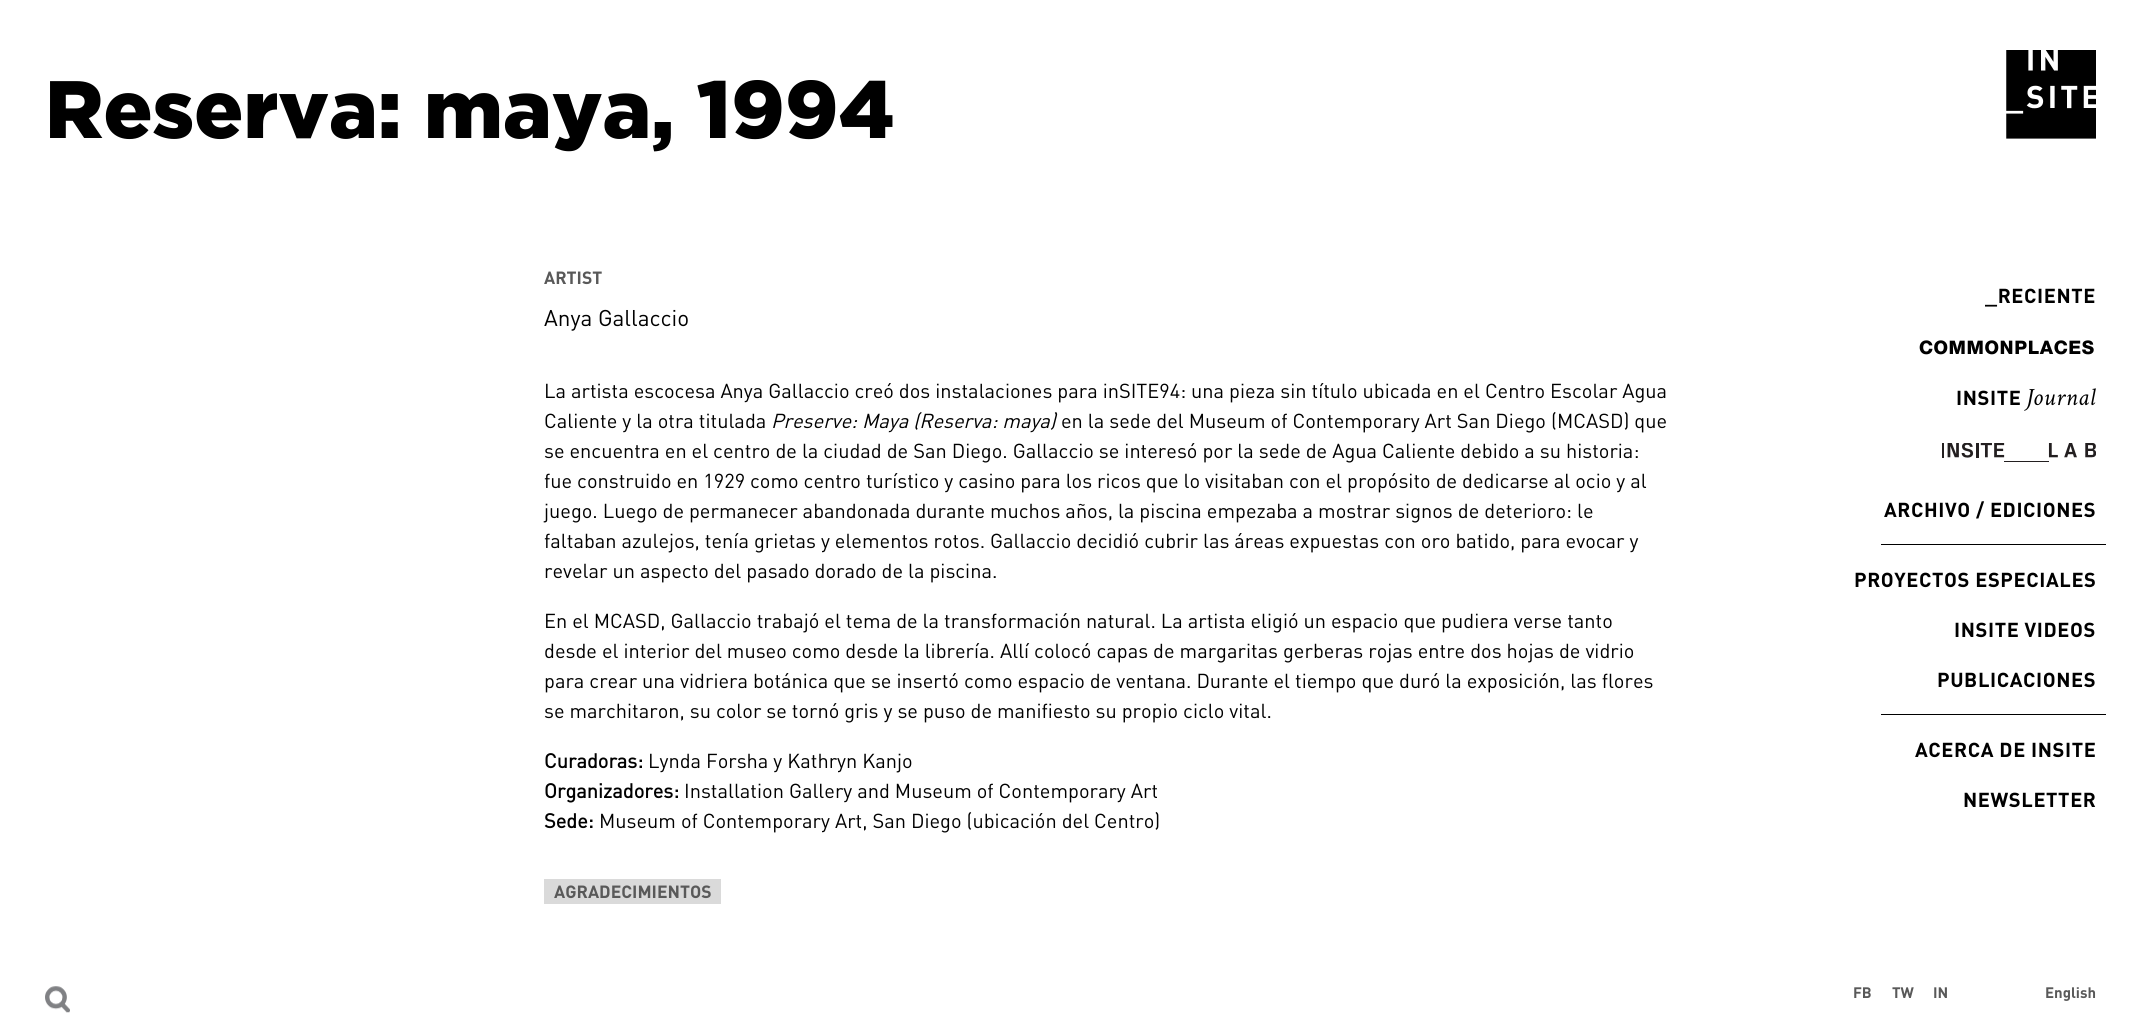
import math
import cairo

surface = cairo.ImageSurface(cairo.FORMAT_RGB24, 2141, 1034)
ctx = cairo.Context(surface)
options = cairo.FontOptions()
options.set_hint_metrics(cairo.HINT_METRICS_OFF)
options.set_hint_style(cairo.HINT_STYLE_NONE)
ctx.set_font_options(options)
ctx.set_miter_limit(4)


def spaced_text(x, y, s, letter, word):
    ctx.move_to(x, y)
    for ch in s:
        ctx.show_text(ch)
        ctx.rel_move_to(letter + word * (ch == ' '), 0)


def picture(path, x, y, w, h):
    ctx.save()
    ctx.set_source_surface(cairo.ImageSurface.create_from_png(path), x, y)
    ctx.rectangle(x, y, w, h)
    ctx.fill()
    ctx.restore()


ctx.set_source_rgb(1, 1, 1)
ctx.paint()
ctx.select_font_face("Gotham Black")
ctx.set_font_size(81.25)
ctx.set_source_rgb(0, 0, 0)
ctx.move_to(45, 138)
ctx.show_text("Reserva: maya, 1994")
ctx.select_font_face("DIN", cairo.FONT_SLANT_NORMAL, cairo.FONT_WEIGHT_BOLD)
ctx.set_font_size(17.5)
ctx.set_source_rgb(0.349, 0.349, 0.349)
ctx.move_to(544, 284)
ctx.show_text("ARTIST")
ctx.select_font_face("DIN")
ctx.set_font_size(22.5)
ctx.set_source_rgb(0, 0, 0)
ctx.move_to(544, 326)
ctx.show_text("Anya Gallaccio")
ctx.set_font_size(20)
ctx.move_to(544, 398)
ctx.show_text("La artista escocesa Anya Gallaccio creó dos instalaciones para inSITE94: una pieza sin título ubicada en el Centro Escolar Agua")
ctx.move_to(544, 428)
ctx.show_text("Caliente y la otra titulada")
ctx.select_font_face("DIN", cairo.FONT_SLANT_ITALIC)
ctx.move_to(771, 428)
ctx.show_text("Preserve: Maya (Reserva: maya)")
ctx.select_font_face("DIN")
ctx.move_to(1061, 428)
ctx.show_text("en la sede del Museum of Contemporary Art San Diego (MCASD) que")
ctx.move_to(544, 458)
ctx.show_text("se encuentra en el centro de la ciudad de San Diego. Gallaccio se interesó por la sede de Agua Caliente debido a su historia:")
ctx.move_to(544, 488)
ctx.show_text("fue construido en 1929 como centro turístico y casino para los ricos que lo visitaban con el propósito de dedicarse al ocio y al")
ctx.move_to(544, 518)
ctx.show_text("juego. Luego de permanecer abandonada durante muchos años, la piscina empezaba a mostrar signos de deterioro: le")
ctx.move_to(544, 548)
ctx.show_text("faltaban azulejos, tenía grietas y elementos rotos. Gallaccio decidió cubrir las áreas expuestas con oro batido, para evocar y")
ctx.move_to(544, 578)
ctx.show_text("revelar un aspecto del pasado dorado de la piscina.")
ctx.move_to(544, 628)
ctx.show_text("En el MCASD, Gallaccio trabajó el tema de la transformación natural. La artista eligió un espacio que pudiera verse tanto")
ctx.move_to(544, 658)
ctx.show_text("desde el interior del museo como desde la librería. Allí colocó capas de margaritas gerberas rojas entre dos hojas de vidrio")
ctx.move_to(544, 688)
ctx.show_text("para crear una vidriera botánica que se insertó como espacio de ventana. Durante el tiempo que duró la exposición, las flores")
ctx.move_to(544, 718)
ctx.show_text("se marchitaron, su color se tornó gris y se puso de manifiesto su propio ciclo vital.")
ctx.select_font_face("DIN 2", cairo.FONT_SLANT_NORMAL, cairo.FONT_WEIGHT_BOLD)
ctx.move_to(544, 768)
ctx.show_text("Curadoras:")
ctx.select_font_face("DIN")
ctx.move_to(648, 768)
ctx.show_text("Lynda Forsha y Kathryn Kanjo")
ctx.select_font_face("DIN 2", cairo.FONT_SLANT_NORMAL, cairo.FONT_WEIGHT_BOLD)
ctx.move_to(544, 798)
ctx.show_text("Organizadores:")
ctx.select_font_face("DIN")
ctx.move_to(684, 798)
ctx.show_text("Installation Gallery and Museum of Contemporary Art")
ctx.select_font_face("DIN 2", cairo.FONT_SLANT_NORMAL, cairo.FONT_WEIGHT_BOLD)
ctx.move_to(544, 828)
ctx.show_text("Sede:")
ctx.select_font_face("DIN")
ctx.move_to(599, 828)
ctx.show_text("Museum of Contemporary Art, San Diego (ubicación del Centro)")
ctx.set_source_rgb(0.855, 0.855, 0.855)
ctx.rectangle(544, 879, 177, 25)
ctx.fill()
ctx.select_font_face("DIN", cairo.FONT_SLANT_NORMAL, cairo.FONT_WEIGHT_BOLD)
ctx.set_font_size(17.5)
ctx.set_source_rgb(0.349, 0.349, 0.349)
ctx.move_to(554, 898)
ctx.show_text("AGRADECIMIENTOS")
picture("img1.png", 2006, 50, 90, 89)
ctx.set_font_size(20)
ctx.set_source_rgb(0, 0, 0)
spaced_text(1985, 303, "_RECIENTE", 0.6, 0)
ctx.select_font_face("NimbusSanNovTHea")
spaced_text(1919, 354, "COMMONPLACES", 0.6, 0)
ctx.select_font_face("DIN", cairo.FONT_SLANT_NORMAL, cairo.FONT_WEIGHT_BOLD)
spaced_text(1956, 405, "INSITE", 0.6, 0)
ctx.select_font_face("Crimson Text", cairo.FONT_SLANT_ITALIC)
ctx.set_font_size(25)
spaced_text(2026, 405, "Journal", 0.6, 0)
picture("img2.png", 1942, 443, 154, 19)
ctx.select_font_face("DIN", cairo.FONT_SLANT_NORMAL, cairo.FONT_WEIGHT_BOLD)
ctx.set_font_size(20)
spaced_text(1884, 517, "ARCHIVO / EDICIONES", 0.6, 0)
ctx.rectangle(1881, 544, 225, 1)
ctx.fill()
spaced_text(1854, 587, "PROYECTOS ESPECIALES", 0.6, 0)
spaced_text(1954, 637, "INSITE VIDEOS", 0.6, 0)
spaced_text(1937, 687, "PUBLICACIONES", 0.6, 0)
ctx.rectangle(1881, 714, 225, 1)
ctx.fill()
spaced_text(1915, 757, "ACERCA DE INSITE", 0.6, 0)
spaced_text(1963, 807, "NEWSLETTER", 0.6, 0)
picture("img3.png", 45, 986, 25, 27)
ctx.set_font_size(15)
ctx.set_source_rgb(0.349, 0.349, 0.349)
ctx.move_to(1853, 998)
ctx.show_text("FB")
ctx.move_to(1892, 998)
ctx.show_text("TW")
ctx.move_to(1933, 998)
ctx.show_text("IN")
ctx.move_to(2045, 998)
ctx.show_text("English")
surface.write_to_png("page.png")
